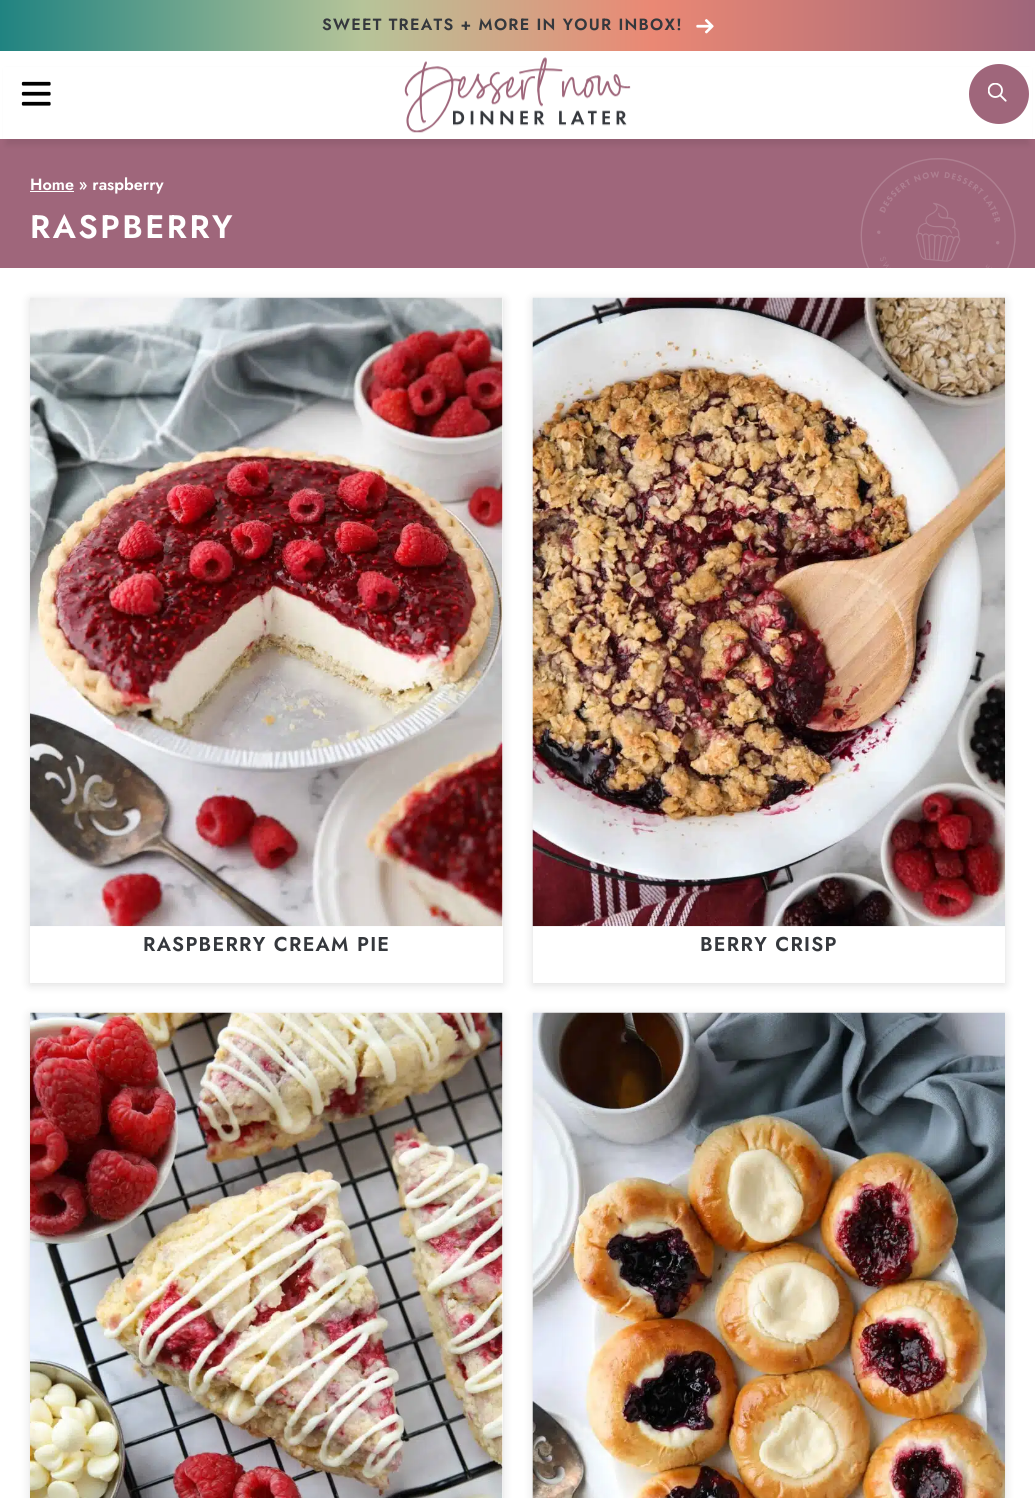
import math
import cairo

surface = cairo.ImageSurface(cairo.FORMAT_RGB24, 1035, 1498)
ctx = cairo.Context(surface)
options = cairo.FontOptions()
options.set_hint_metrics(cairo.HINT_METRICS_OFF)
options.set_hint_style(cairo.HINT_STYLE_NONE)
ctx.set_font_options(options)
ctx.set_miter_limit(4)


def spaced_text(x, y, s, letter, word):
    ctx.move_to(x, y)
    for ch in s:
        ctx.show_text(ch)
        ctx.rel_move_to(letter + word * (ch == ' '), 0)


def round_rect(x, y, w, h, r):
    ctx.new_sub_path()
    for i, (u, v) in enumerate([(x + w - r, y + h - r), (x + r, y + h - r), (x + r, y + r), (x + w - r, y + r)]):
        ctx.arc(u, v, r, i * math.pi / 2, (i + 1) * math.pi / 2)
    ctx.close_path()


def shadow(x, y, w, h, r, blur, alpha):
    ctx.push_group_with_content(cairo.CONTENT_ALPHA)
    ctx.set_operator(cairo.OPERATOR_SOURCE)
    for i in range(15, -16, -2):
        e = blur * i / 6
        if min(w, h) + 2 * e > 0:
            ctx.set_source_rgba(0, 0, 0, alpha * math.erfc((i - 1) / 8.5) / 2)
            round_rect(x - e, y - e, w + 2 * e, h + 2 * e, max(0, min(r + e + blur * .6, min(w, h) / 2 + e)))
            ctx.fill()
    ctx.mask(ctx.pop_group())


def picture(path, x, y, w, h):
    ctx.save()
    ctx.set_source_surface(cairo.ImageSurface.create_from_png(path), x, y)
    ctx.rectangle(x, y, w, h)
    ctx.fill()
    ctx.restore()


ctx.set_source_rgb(1, 1, 1)
ctx.paint()
gradient = cairo.LinearGradient(0, 26, 1035, 26)
gradient.add_color_stop_rgba(0, 0.125, 0.514, 0.506, 1)
gradient.add_color_stop_rgba(0.35, 0.714, 0.769, 0.6, 1)
gradient.add_color_stop_rgba(0.63, 0.918, 0.533, 0.455, 1)
gradient.add_color_stop_rgba(1, 0.624, 0.4, 0.482, 1)
ctx.set_source(gradient)
ctx.rectangle(0, 0, 1035, 51)
ctx.fill()
ctx.select_font_face("Jost SemiBold")
ctx.set_font_size(16.25)
ctx.set_source_rgb(0.208, 0.22, 0.239)
spaced_text(322, 30, "SWEET TREATS + MORE IN YOUR INBOX!", 1.25, 0)
picture("img1.png", 696, 19, 18, 15)
ctx.set_source_rgb(0.624, 0.4, 0.482)
ctx.rectangle(0, 139, 1035, 129)
ctx.fill()
ctx.set_source_rgb(0, 0, 0)
shadow(6, 70, 1023, 75, 0, 3, 0.08)
ctx.set_source_rgb(1, 1, 1)
ctx.rectangle(3, 67, 1029, 72)
ctx.fill()
picture("img2.png", 21, 81, 30, 25)
picture("img3.png", 404, 57, 227, 76)
ctx.set_source_rgb(0.624, 0.4, 0.482)
ctx.arc(999, 94, 30, 0, 2 * math.pi)
ctx.fill()
picture("img4.png", 988, 83, 19, 19)
ctx.set_source_rgb(1, 1, 1)
ctx.rectangle(30, 191, 44, 1)
ctx.fill()
ctx.move_to(30, 190)
ctx.show_text("Home » raspberry")
picture("img5.png", 860, 158, 156, 110)
ctx.set_font_size(32.5)
spaced_text(30, 238, "RASPBERRY", 2.5, 0)
ctx.set_source_rgb(0.137, 0.137, 0.137)
shadow(30, 300, 473, 685, 0, 5, 0.15)
ctx.set_source_rgb(1, 1, 1)
ctx.rectangle(30, 298, 473, 685)
ctx.fill()
picture("img6.png", 30, 297, 473, 630)
ctx.set_font_size(20)
ctx.set_source_rgb(0.208, 0.22, 0.239)
spaced_text(143, 951, "RASPBERRY CREAM PIE", 1.25, 0)
ctx.set_source_rgb(0.137, 0.137, 0.137)
shadow(533, 300, 472, 685, 0, 5, 0.15)
ctx.set_source_rgb(1, 1, 1)
ctx.rectangle(533, 926, 472, 57)
ctx.fill()
picture("img7.png", 532, 297, 473, 630)
ctx.set_source_rgb(0.208, 0.22, 0.239)
spaced_text(700, 951, "BERRY CRISP", 1.25, 0)
ctx.set_source_rgb(0.137, 0.137, 0.137)
shadow(30, 1015, 473, 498, 0, 5, 0.15)
ctx.set_source_rgb(1, 1, 1)
ctx.rectangle(502, 1013, 1, 485)
ctx.fill()
picture("img8.png", 30, 1012, 473, 486)
ctx.set_source_rgb(0.137, 0.137, 0.137)
shadow(533, 1015, 472, 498, 0, 5, 0.15)
picture("img9.png", 532, 1012, 473, 486)
surface.write_to_png("page.png")
